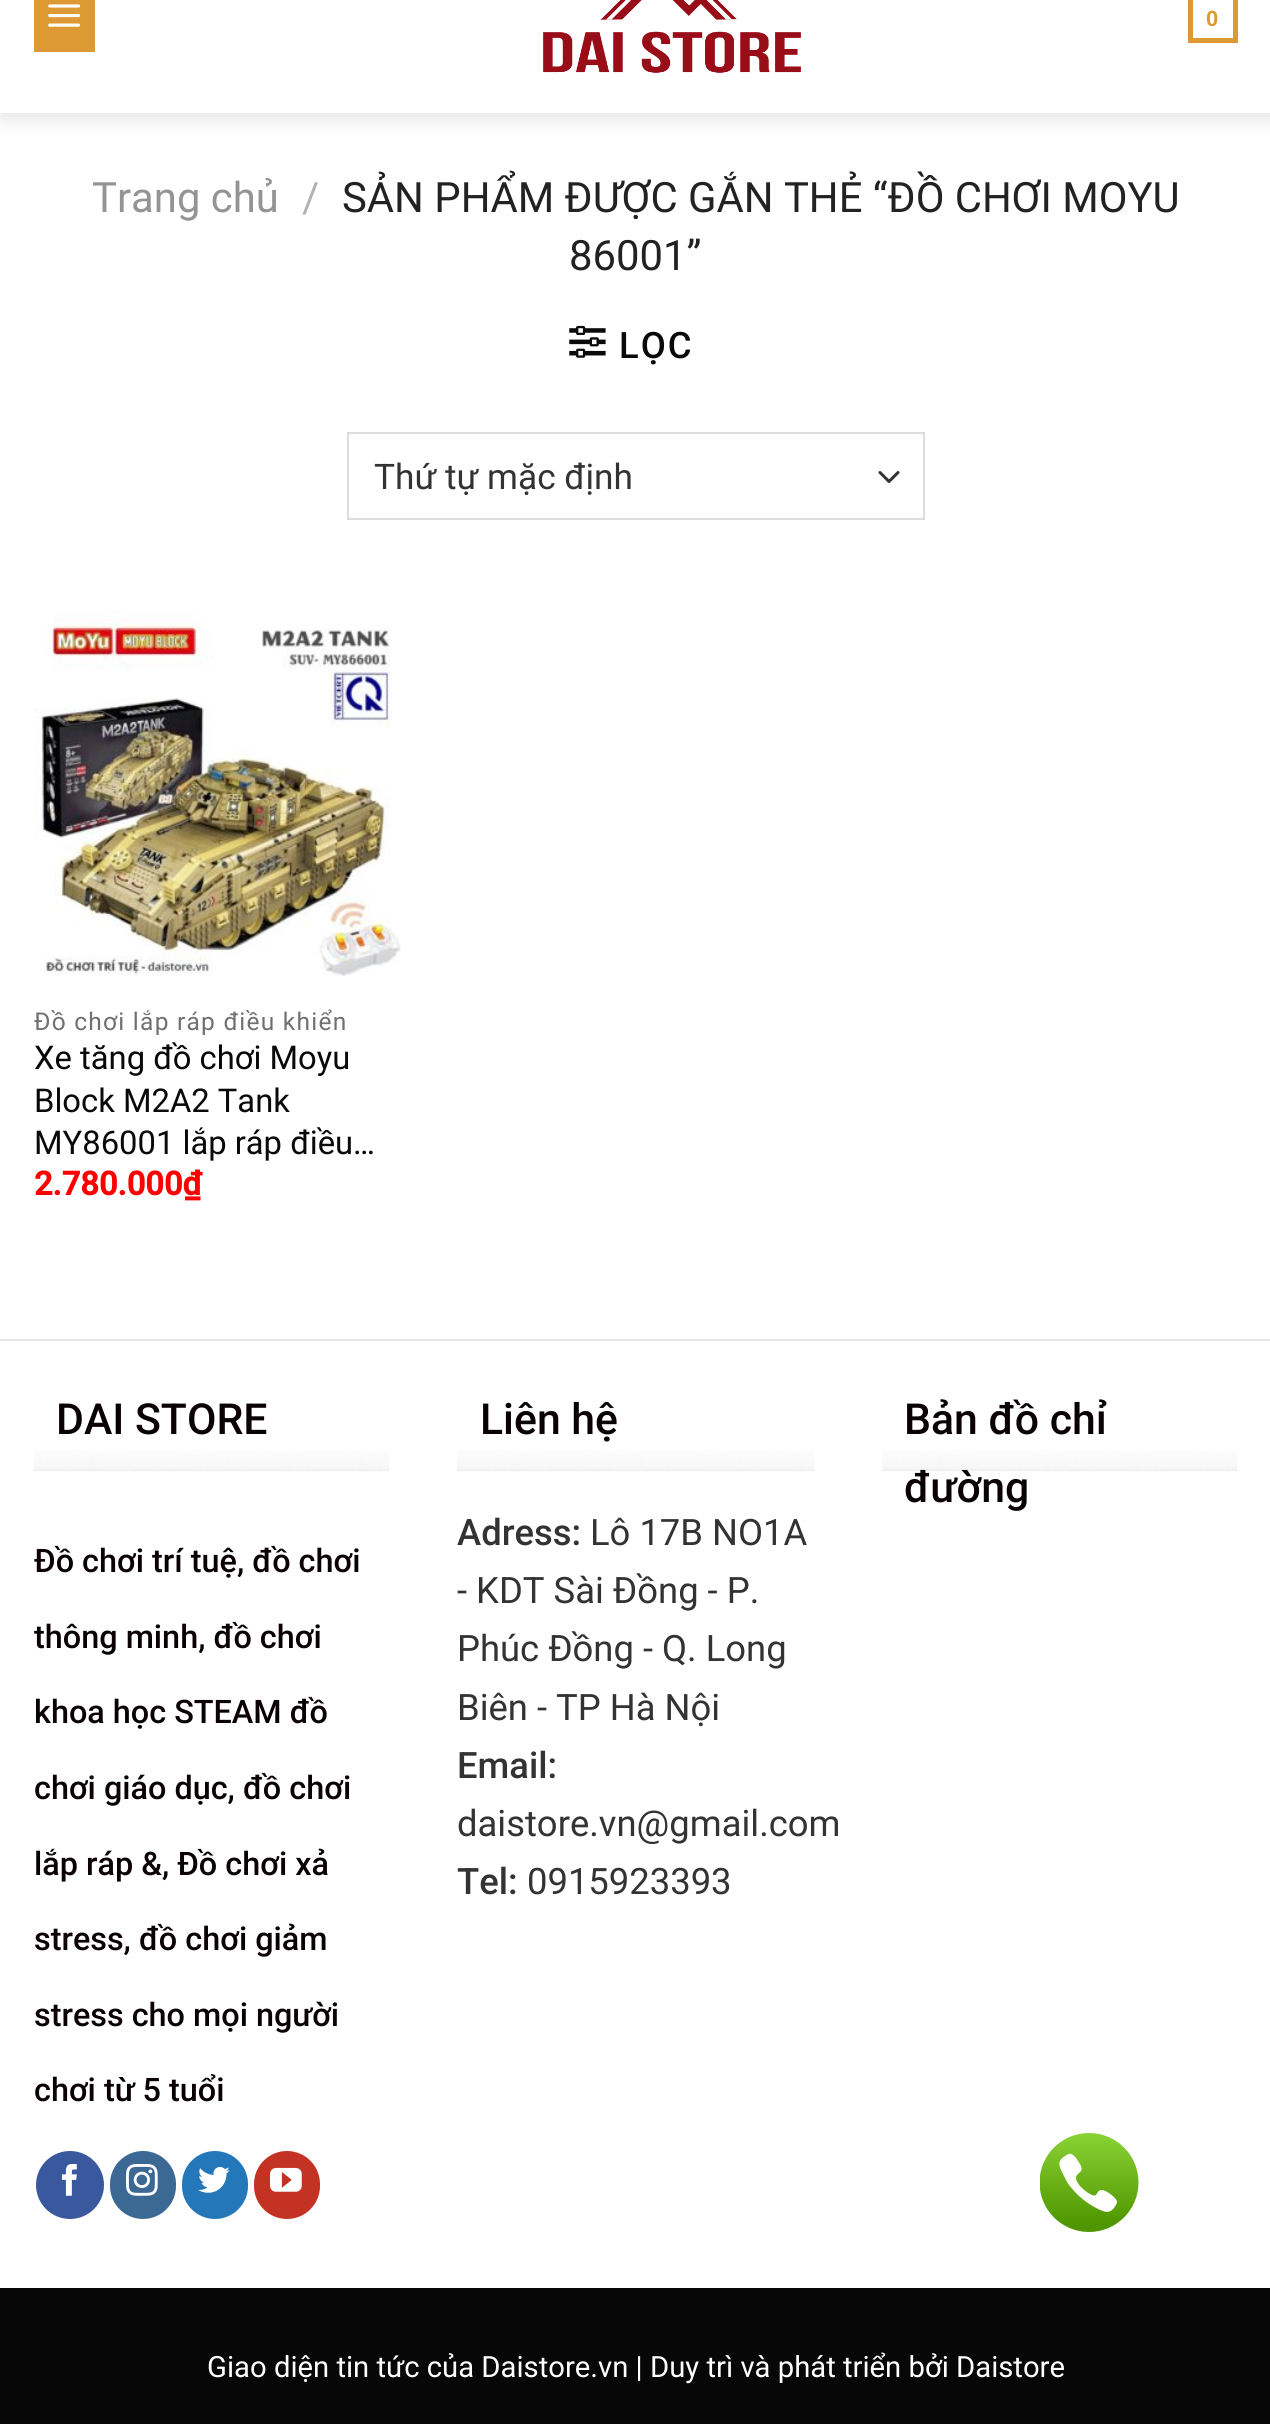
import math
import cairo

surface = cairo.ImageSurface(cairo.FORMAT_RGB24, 1270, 2424)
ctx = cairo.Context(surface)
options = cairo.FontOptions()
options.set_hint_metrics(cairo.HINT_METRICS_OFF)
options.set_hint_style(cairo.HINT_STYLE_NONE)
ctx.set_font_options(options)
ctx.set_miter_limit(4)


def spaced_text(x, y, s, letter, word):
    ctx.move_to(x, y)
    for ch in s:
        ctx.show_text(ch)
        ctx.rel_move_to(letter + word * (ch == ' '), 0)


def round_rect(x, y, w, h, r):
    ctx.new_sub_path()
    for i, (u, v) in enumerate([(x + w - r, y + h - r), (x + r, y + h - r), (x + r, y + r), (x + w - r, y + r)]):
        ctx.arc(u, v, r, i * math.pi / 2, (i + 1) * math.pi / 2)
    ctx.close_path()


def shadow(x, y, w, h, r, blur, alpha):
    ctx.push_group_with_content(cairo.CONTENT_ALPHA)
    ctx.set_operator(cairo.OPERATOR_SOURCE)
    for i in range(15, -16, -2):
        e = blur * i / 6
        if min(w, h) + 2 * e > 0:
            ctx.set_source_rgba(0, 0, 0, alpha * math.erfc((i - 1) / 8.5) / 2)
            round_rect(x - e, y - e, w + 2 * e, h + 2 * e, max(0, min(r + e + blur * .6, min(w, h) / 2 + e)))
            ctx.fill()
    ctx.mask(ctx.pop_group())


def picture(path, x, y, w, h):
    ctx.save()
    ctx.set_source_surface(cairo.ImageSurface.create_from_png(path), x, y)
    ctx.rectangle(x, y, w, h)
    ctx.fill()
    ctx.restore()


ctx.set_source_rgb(1, 1, 1)
ctx.paint()
ctx.set_source_rgb(0, 0, 0)
shadow(2, -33, 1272, 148, 0, 11, 0.15)
ctx.set_source_rgb(1, 1, 1)
ctx.rectangle(0, 0, 1270, 113)
ctx.fill()
ctx.set_source_rgb(0.867, 0.6, 0.2)
ctx.rectangle(34, 0, 61, 52)
ctx.fill()
picture("img1.png", 48, 4, 33, 23)
picture("img2.png", 543, 0, 258, 73)
ctx.rectangle(1190.5, -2.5, 45, 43)
ctx.set_line_width(5)
ctx.stroke()
ctx.select_font_face("Liberation Sans", cairo.FONT_SLANT_NORMAL, cairo.FONT_WEIGHT_BOLD)
ctx.set_font_size(22)
ctx.move_to(1206, 26)
ctx.show_text("0")
ctx.select_font_face("Roboto")
ctx.set_font_size(41.8)
ctx.set_source_rgb(0.58, 0.58, 0.58)
ctx.move_to(92, 212)
ctx.show_text("Trang chủ")
ctx.set_source_rgb(0.698, 0.698, 0.698)
ctx.move_to(302, 212)
ctx.show_text("/")
ctx.set_source_rgb(0.133, 0.133, 0.133)
ctx.move_to(342, 212)
ctx.show_text("SẢN PHẨM ĐƯỢC GẮN THẺ “ĐỒ CHƠI MOYU")
ctx.move_to(569, 270)
ctx.show_text("86001”")
picture("img3.png", 569, 325, 37, 33)
ctx.select_font_face("Roboto Medium")
ctx.set_font_size(36.4)
ctx.set_source_rgb(0.039, 0.039, 0.039)
spaced_text(619, 358, "LỌC", 2, 0)
ctx.new_path()
ctx.move_to(880, 472.5)
ctx.line_to(889, 481.5)
ctx.line_to(898, 472.5)
ctx.set_source_rgb(0.2, 0.2, 0.2)
ctx.set_line_width(3)
ctx.set_line_cap(cairo.LINE_CAP_ROUND)
ctx.set_line_join(cairo.LINE_JOIN_ROUND)
ctx.stroke()
ctx.rectangle(348, 433, 576, 86)
ctx.set_source_rgb(0.867, 0.867, 0.867)
ctx.set_line_width(2)
ctx.set_line_cap(cairo.LINE_CAP_BUTT)
ctx.set_line_join(cairo.LINE_JOIN_MITER)
ctx.stroke()
ctx.select_font_face("Roboto")
ctx.set_font_size(35.25)
ctx.set_source_rgb(0.2, 0.2, 0.2)
ctx.move_to(374, 489)
ctx.show_text("Thứ tự mặc định")
picture("img4.png", 34, 610, 367, 366)
ctx.set_font_size(24.5)
ctx.set_source_rgb(0.439, 0.439, 0.439)
spaced_text(34, 1030, "Đồ chơi lắp ráp điều khiển", 1.25, 0)
ctx.set_font_size(32.75)
ctx.set_source_rgb(0.039, 0.039, 0.039)
ctx.move_to(34, 1069)
ctx.show_text("Xe tăng đồ chơi Moyu")
ctx.move_to(34, 1112)
ctx.show_text("Block M2A2 Tank")
ctx.move_to(34, 1154)
ctx.show_text("MY86001 lắp ráp điều…")
ctx.select_font_face("Roboto", cairo.FONT_SLANT_NORMAL, cairo.FONT_WEIGHT_BOLD)
ctx.set_source_rgb(1, 0, 0)
ctx.move_to(34, 1195)
ctx.show_text("2.780.000₫")
ctx.set_source_rgb(0.902, 0.902, 0.902)
ctx.rectangle(0, 1339, 1270, 2)
ctx.fill()
ctx.select_font_face("Roboto Medium")
ctx.set_font_size(42.75)
ctx.set_source_rgb(0.039, 0.004, 0.012)
ctx.move_to(56, 1434)
ctx.show_text("DAI STORE")
picture("img5.png", 33, 1450, 357, 22)
ctx.set_font_size(32.4)
ctx.move_to(34, 1572)
ctx.show_text("Đồ chơi trí tuệ, đồ chơi")
ctx.move_to(34, 1648)
ctx.show_text("thông minh, đồ chơi")
ctx.move_to(34, 1723)
ctx.show_text("khoa học STEAM đồ")
ctx.move_to(34, 1799)
ctx.show_text("chơi giáo dục, đồ chơi")
ctx.move_to(34, 1875)
ctx.show_text("lắp ráp &, Đồ chơi xả")
ctx.move_to(34, 1950)
ctx.show_text("stress, đồ chơi giảm")
ctx.move_to(34, 2026)
ctx.show_text("stress cho mọi người")
ctx.move_to(34, 2101)
ctx.show_text("chơi từ 5 tuổi")
ctx.set_source_rgb(0.227, 0.345, 0.616)
ctx.new_path()
ctx.arc(70, 2185, 33, 0, 2 * math.pi)
ctx.fill_preserve()
ctx.stroke()
picture("img6.png", 61, 2164, 16, 32)
ctx.set_source_rgb(0.231, 0.412, 0.58)
round_rect(111, 2152, 64, 66, 32)
ctx.fill_preserve()
ctx.stroke()
picture("img7.png", 126, 2164, 32, 32)
ctx.set_source_rgb(0.141, 0.471, 0.729)
round_rect(183, 2152, 64, 66, 32)
ctx.fill_preserve()
ctx.stroke()
picture("img8.png", 198, 2167, 32, 26)
ctx.set_source_rgb(0.765, 0.196, 0.137)
round_rect(255, 2152, 64, 66, 32)
ctx.fill_preserve()
ctx.stroke()
picture("img9.png", 270, 2167, 32, 25)
ctx.set_font_size(42.75)
ctx.set_source_rgb(0.039, 0.004, 0.012)
ctx.move_to(480, 1434)
ctx.show_text("Liên hệ")
picture("img10.png", 456, 1450, 359, 22)
ctx.set_font_size(36.4)
ctx.set_source_rgb(0.2, 0.2, 0.2)
ctx.move_to(457, 1545)
ctx.show_text("Adress:")
ctx.select_font_face("Roboto")
ctx.move_to(590, 1545)
ctx.show_text("Lô 17B NO1A")
ctx.move_to(457, 1603)
ctx.show_text("- KDT Sài Đồng - P.")
ctx.move_to(457, 1661)
ctx.show_text("Phúc Đồng - Q. Long")
ctx.move_to(457, 1720)
ctx.show_text("Biên - TP Hà Nội")
ctx.select_font_face("Roboto Medium")
ctx.move_to(457, 1778)
ctx.show_text("Email:")
ctx.select_font_face("Roboto")
ctx.move_to(457, 1836)
ctx.show_text("daistore.vn@gmail.com")
ctx.select_font_face("Roboto Medium")
ctx.move_to(457, 1894)
ctx.show_text("Tel:")
ctx.select_font_face("Roboto")
ctx.move_to(527, 1894)
ctx.show_text("0915923393")
ctx.select_font_face("Roboto Medium")
ctx.set_font_size(42.75)
ctx.set_source_rgb(0.039, 0.004, 0.012)
ctx.move_to(904, 1434)
ctx.show_text("Bản đồ chỉ")
picture("img11.png", 882, 1450, 356, 22)
ctx.move_to(904, 1502)
ctx.show_text("đường")
ctx.set_source_rgb(0.031, 0.031, 0.031)
ctx.rectangle(0, 2288, 1270, 136)
ctx.fill()
ctx.select_font_face("Roboto")
ctx.set_font_size(29.25)
ctx.set_source_rgb(1, 1, 1)
ctx.move_to(207, 2377)
ctx.show_text("Giao diện tin tức của Daistore.vn | Duy trì và phát triển bởi Daistore")
ctx.save()
ctx.rectangle(1040, 2133, 99, 99)
ctx.clip()
gradient = cairo.LinearGradient(1089, 2133, 1089, 2224)
gradient.add_color_stop_rgba(0, 0.541, 0.827, 0.212, 1)
gradient.add_color_stop_rgba(1, 0.314, 0.588, 0, 1)
ctx.set_source(gradient)
ctx.arc(1089, 2182.5, 49.5, 0, 2 * math.pi)
ctx.fill()
ctx.restore()
ctx.set_fill_rule(cairo.FILL_RULE_EVEN_ODD)
ctx.new_path()
ctx.move_to(1071, 2154)
ctx.curve_to(1075, 2155, 1078, 2161, 1080, 2164)
ctx.curve_to(1087, 2176, 1068, 2171, 1080, 2186)
ctx.curve_to(1083, 2189, 1086, 2192, 1090, 2194)
ctx.curve_to(1099, 2199, 1095, 2190, 1102, 2190)
ctx.curve_to(1106, 2190, 1117, 2198, 1117, 2202)
ctx.curve_to(1117, 2204, 1115, 2206, 1114, 2208)
ctx.curve_to(1109, 2214, 1105, 2212, 1098, 2209)
ctx.curve_to(1086, 2203, 1075, 2194, 1067, 2182)
ctx.line_to(1061, 2170)
ctx.curve_to(1058, 2163, 1059, 2160, 1065, 2156)
ctx.curve_to(1067, 2155, 1069, 2153, 1071, 2154)
ctx.close_path()
ctx.fill()
surface.write_to_png("page.png")
